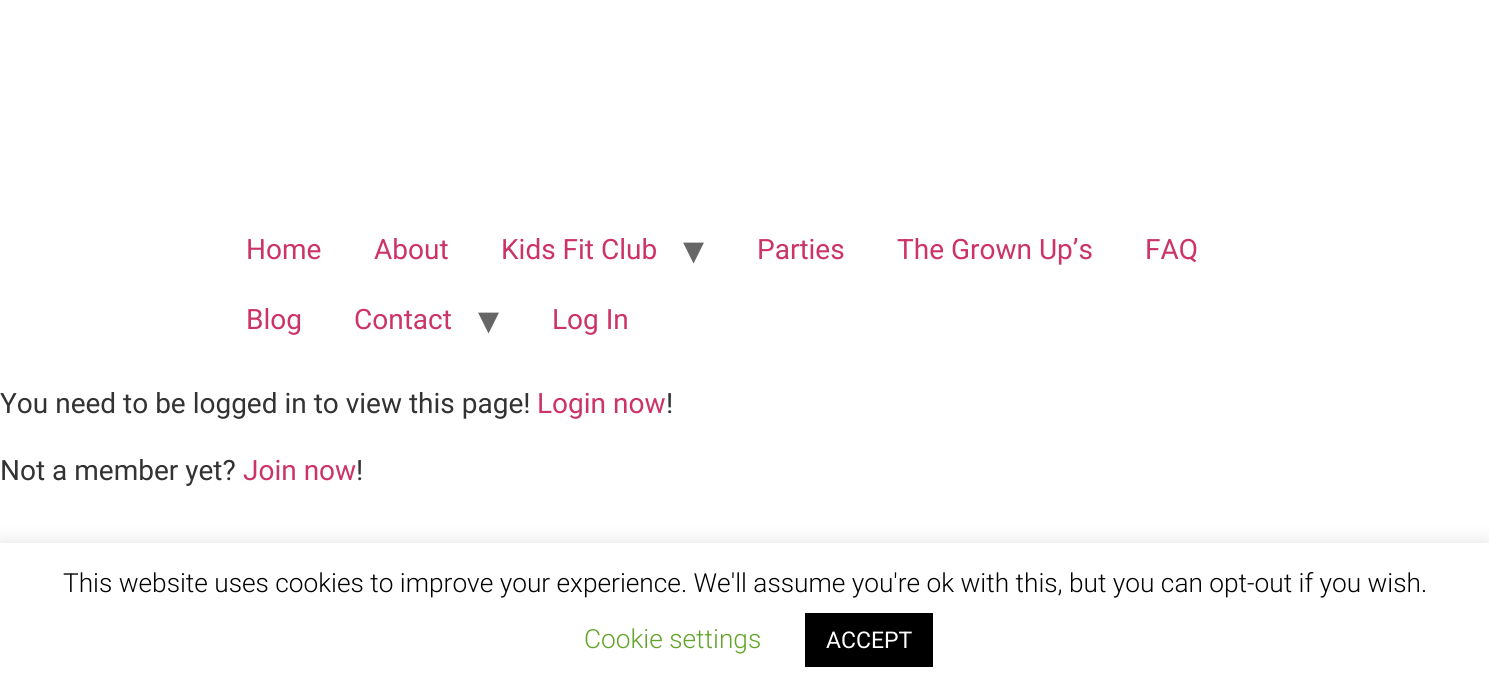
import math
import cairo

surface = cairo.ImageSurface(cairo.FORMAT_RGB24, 1489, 695)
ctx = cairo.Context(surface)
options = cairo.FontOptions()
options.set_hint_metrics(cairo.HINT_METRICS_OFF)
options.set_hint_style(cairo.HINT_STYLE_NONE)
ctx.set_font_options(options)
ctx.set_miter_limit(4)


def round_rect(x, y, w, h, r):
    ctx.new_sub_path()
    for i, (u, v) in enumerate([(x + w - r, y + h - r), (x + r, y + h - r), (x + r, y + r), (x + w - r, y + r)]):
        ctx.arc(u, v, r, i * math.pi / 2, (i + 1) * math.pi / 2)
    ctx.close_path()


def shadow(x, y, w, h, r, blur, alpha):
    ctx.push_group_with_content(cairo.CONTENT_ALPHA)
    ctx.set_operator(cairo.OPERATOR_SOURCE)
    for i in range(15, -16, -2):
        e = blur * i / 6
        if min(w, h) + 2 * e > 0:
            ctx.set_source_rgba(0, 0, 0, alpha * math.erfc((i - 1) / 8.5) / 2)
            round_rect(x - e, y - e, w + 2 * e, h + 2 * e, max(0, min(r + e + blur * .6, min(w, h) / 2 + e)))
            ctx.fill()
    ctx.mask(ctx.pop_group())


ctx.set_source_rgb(1, 1, 1)
ctx.paint()
ctx.select_font_face("Roboto")
ctx.set_font_size(28)
ctx.set_source_rgb(0.8, 0.2, 0.4)
ctx.move_to(246, 259)
ctx.show_text("Home")
ctx.move_to(374, 259)
ctx.show_text("About")
ctx.move_to(501, 259)
ctx.show_text("Kids Fit Club")
ctx.select_font_face("DejaVu Sans")
ctx.set_font_size(42)
ctx.set_source_rgb(0.4, 0.4, 0.4)
ctx.move_to(683, 264)
ctx.show_text("▾")
ctx.select_font_face("Roboto")
ctx.set_font_size(28)
ctx.set_source_rgb(0.8, 0.2, 0.4)
ctx.move_to(757, 259)
ctx.show_text("Parties")
ctx.move_to(897, 259)
ctx.show_text("The Grown Up’s")
ctx.move_to(1145, 259)
ctx.show_text("FAQ")
ctx.move_to(246, 329)
ctx.show_text("Blog")
ctx.move_to(354, 329)
ctx.show_text("Contact")
ctx.select_font_face("DejaVu Sans")
ctx.set_font_size(42)
ctx.set_source_rgb(0.4, 0.4, 0.4)
ctx.move_to(478, 334)
ctx.show_text("▾")
ctx.select_font_face("Roboto")
ctx.set_font_size(28)
ctx.set_source_rgb(0.8, 0.2, 0.4)
ctx.move_to(552, 329)
ctx.show_text("Log In")
ctx.set_source_rgb(0.2, 0.2, 0.2)
ctx.move_to(0, 413)
ctx.show_text("You need to be logged in to view this page!")
ctx.set_source_rgb(0.8, 0.2, 0.4)
ctx.move_to(537, 413)
ctx.show_text("Login now")
ctx.set_source_rgb(0.2, 0.2, 0.2)
ctx.move_to(666, 413)
ctx.show_text("!")
ctx.move_to(0, 480)
ctx.show_text("Not a member yet?")
ctx.set_source_rgb(0.8, 0.2, 0.4)
ctx.move_to(243, 480)
ctx.show_text("Join now")
ctx.set_source_rgb(0.2, 0.2, 0.2)
ctx.move_to(356, 480)
ctx.show_text("!")
ctx.set_source_rgb(0.675, 0.671, 0.671)
shadow(0, 541, 1489, 154, 0, 9, 0.3)
ctx.set_source_rgb(1, 1, 1)
ctx.rectangle(0, 543, 1489, 152)
ctx.fill()
ctx.select_font_face("Roboto Light")
ctx.set_font_size(26.25)
ctx.set_source_rgb(0, 0, 0)
ctx.move_to(63, 592)
ctx.show_text("This website uses cookies to improve your experience. We'll assume you're ok with this, but you can opt-out if you wish.")
ctx.set_source_rgb(0.384, 0.639, 0.161)
ctx.move_to(584, 648)
ctx.show_text("Cookie settings")
ctx.set_source_rgb(0, 0, 0)
ctx.rectangle(805, 613, 128, 54)
ctx.fill()
ctx.select_font_face("Roboto")
ctx.set_font_size(23)
ctx.set_source_rgb(1, 1, 1)
ctx.move_to(826, 648)
ctx.show_text("ACCEPT")
surface.write_to_png("page.png")
